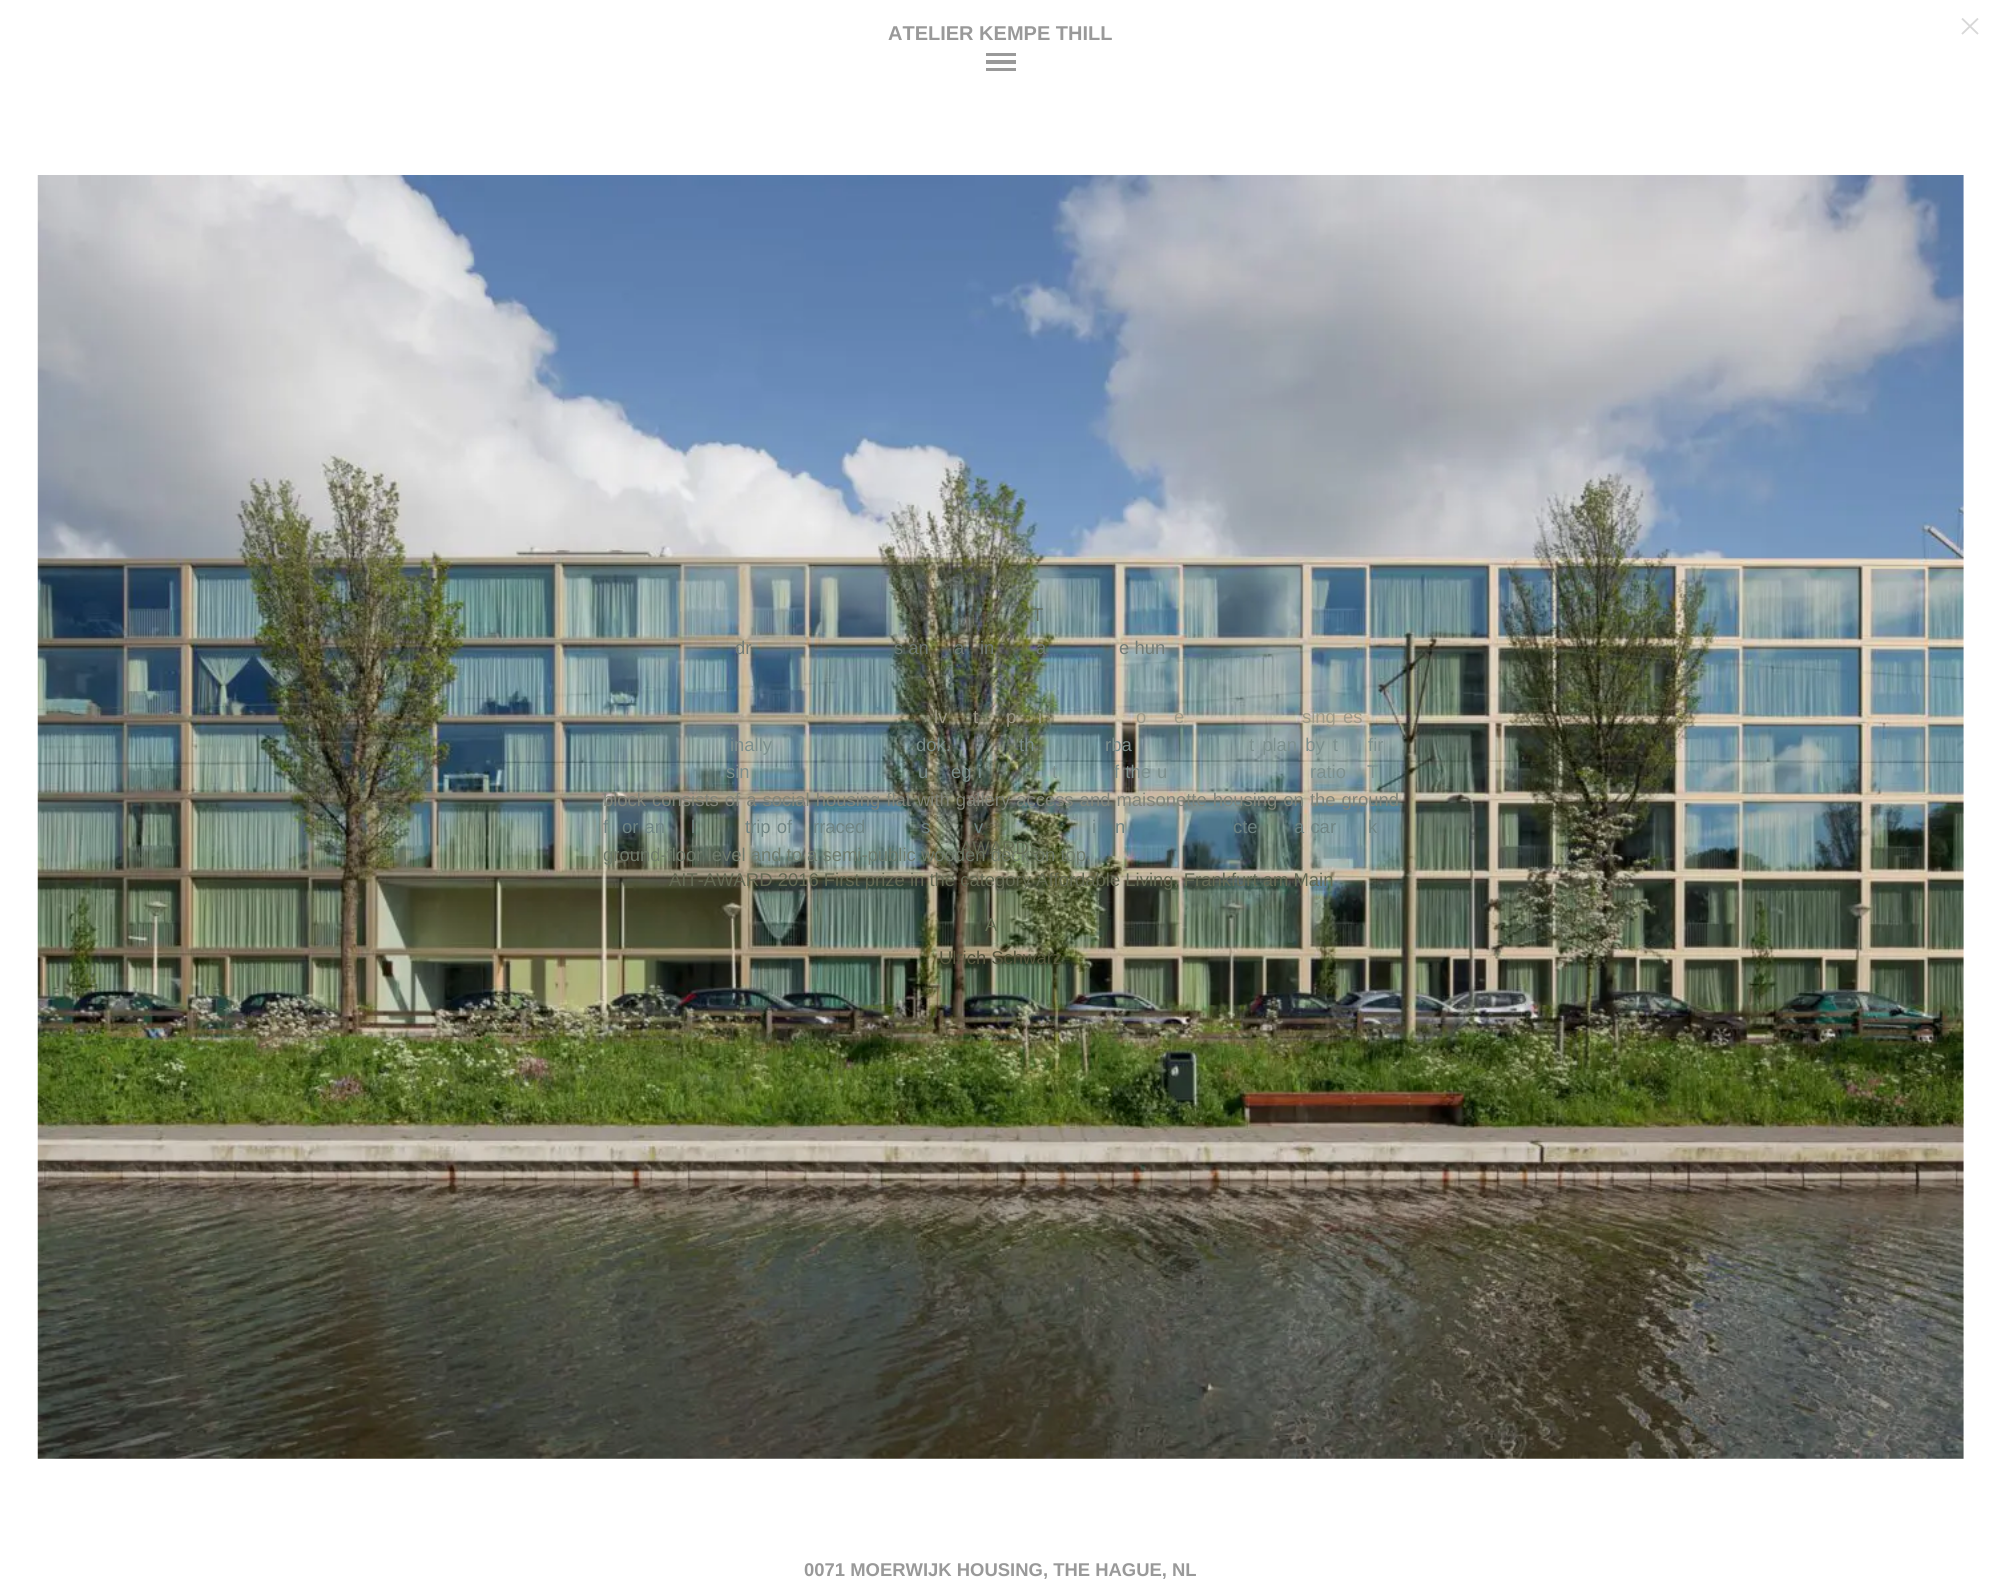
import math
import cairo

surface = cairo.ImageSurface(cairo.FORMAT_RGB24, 2001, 1596)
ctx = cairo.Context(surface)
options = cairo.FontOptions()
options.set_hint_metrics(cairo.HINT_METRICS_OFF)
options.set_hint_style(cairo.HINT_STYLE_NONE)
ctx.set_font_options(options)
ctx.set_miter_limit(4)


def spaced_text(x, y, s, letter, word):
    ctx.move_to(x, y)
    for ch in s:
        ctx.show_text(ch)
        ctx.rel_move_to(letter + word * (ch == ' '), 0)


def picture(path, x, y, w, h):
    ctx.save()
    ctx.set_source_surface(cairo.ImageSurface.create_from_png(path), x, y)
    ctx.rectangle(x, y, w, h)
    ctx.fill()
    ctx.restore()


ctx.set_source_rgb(1, 1, 1)
ctx.paint()
ctx.select_font_face("Liberation Sans", cairo.FONT_SLANT_NORMAL, cairo.FONT_WEIGHT_BOLD)
ctx.set_font_size(20)
ctx.set_source_rgb(0.6, 0.6, 0.6)
ctx.move_to(888, 40)
ctx.show_text("ATELIER KEMPE THILL")
ctx.rectangle(986, 53, 30, 3)
ctx.fill()
ctx.rectangle(986, 60, 30, 4)
ctx.fill()
ctx.rectangle(986, 68, 30, 3)
ctx.fill()
ctx.new_path()
ctx.move_to(1962, 18.5)
ctx.line_to(1978, 34)
ctx.move_to(1962, 34)
ctx.line_to(1978, 18.5)
ctx.set_source_rgb(0.847, 0.847, 0.847)
ctx.set_line_width(1.9)
ctx.stroke()
picture("img1.png", 37, 175, 1927, 1284)
ctx.select_font_face("Liberation Sans")
ctx.set_font_size(18.45)
ctx.set_source_rgb(0.388, 0.427, 0.365)
ctx.move_to(1032, 621)
ctx.show_text("T")
ctx.set_source_rgb(0.439, 0.482, 0.463)
ctx.move_to(735, 654)
ctx.show_text("dr")
ctx.move_to(894, 654)
ctx.show_text("s an")
ctx.move_to(954, 654)
ctx.show_text("a")
ctx.move_to(980, 654)
ctx.show_text("in")
ctx.move_to(1036, 654)
ctx.show_text("a")
ctx.move_to(1119, 654)
ctx.show_text("e hun")
ctx.set_source_rgb(0.498, 0.514, 0.475)
spaced_text(603, 806, "block consists of a social housing flat with gallery access and maisonette housing on the ground", 0, 0.9)
ctx.set_source_rgb(0.388, 0.427, 0.365)
ctx.move_to(974, 809)
ctx.show_text(",")
ctx.set_source_rgb(0.431, 0.478, 0.42)
ctx.move_to(603, 861)
ctx.show_text("ground-floor level and to a semi-public wooden deck on top.")
ctx.set_source_rgb(0.388, 0.412, 0.325)
ctx.move_to(960, 854)
ctx.show_text("AWARDS")
ctx.move_to(669, 886)
ctx.show_text("AIT-AWARD 2016 First prize in the category Affordable Living, Frankfurt am Main")
ctx.set_source_rgb(0.392, 0.435, 0.325)
ctx.move_to(985, 931)
ctx.show_text("A")
ctx.set_source_rgb(0.337, 0.337, 0.243)
ctx.move_to(939, 964)
ctx.show_text("Ulrich Schwarz")
ctx.set_source_rgb(0.612, 0.6, 0.533)
spaced_text(934, 723, "lv", 0, 2)
spaced_text(973, 723, "t", 0, 2)
spaced_text(1006, 723, "p", 0, 2)
spaced_text(1038, 723, "i", 0, 2)
spaced_text(1136, 723, "o", 0, 2)
spaced_text(1174, 723, "e", 0, 2)
spaced_text(1302, 723, "sing es", 0, 2)
ctx.set_source_rgb(0.482, 0.557, 0.549)
spaced_text(730, 751, "inally", 0, 3)
spaced_text(916, 751, "dok.", 0, 3)
spaced_text(1019, 751, "th", 0, 3)
spaced_text(1105, 751, "rba", 0, 3)
spaced_text(1249, 751, "t plan by t", 0, 3)
spaced_text(1368, 751, "fir", 0, 3)
spaced_text(726, 778, "sin", 0, 1)
spaced_text(918, 778, "u", 0, 1)
spaced_text(951, 778, "eg i", 0, 1)
spaced_text(1052, 778, "t", 0, 1)
spaced_text(1114, 778, "f the u", 0, 1)
spaced_text(1310, 778, "ratio", 0, 1)
spaced_text(1367, 778, "T", 0, 1)
ctx.set_source_rgb(0.431, 0.514, 0.51)
spaced_text(603, 833, "f", 0, 1)
spaced_text(622, 833, "or an", 0, 1)
spaced_text(691, 833, "l", 0, 1)
spaced_text(745, 833, "trip of", 0, 1)
spaced_text(813, 833, "rraced", 0, 1)
spaced_text(921, 833, "s", 0, 1)
spaced_text(974, 833, "v", 0, 1)
spaced_text(1092, 833, "i", 0, 1)
spaced_text(1115, 833, "n", 0, 1)
spaced_text(1233, 833, "cte", 0, 1)
spaced_text(1294, 833, "a car", 0, 1)
spaced_text(1368, 833, "k", 0, 1)
ctx.select_font_face("Liberation Sans", cairo.FONT_SLANT_NORMAL, cairo.FONT_WEIGHT_BOLD)
ctx.set_source_rgb(0.6, 0.6, 0.6)
ctx.move_to(804, 1576)
ctx.show_text("0071 MOERWIJK HOUSING, THE HAGUE, NL")
surface.write_to_png("page.png")
